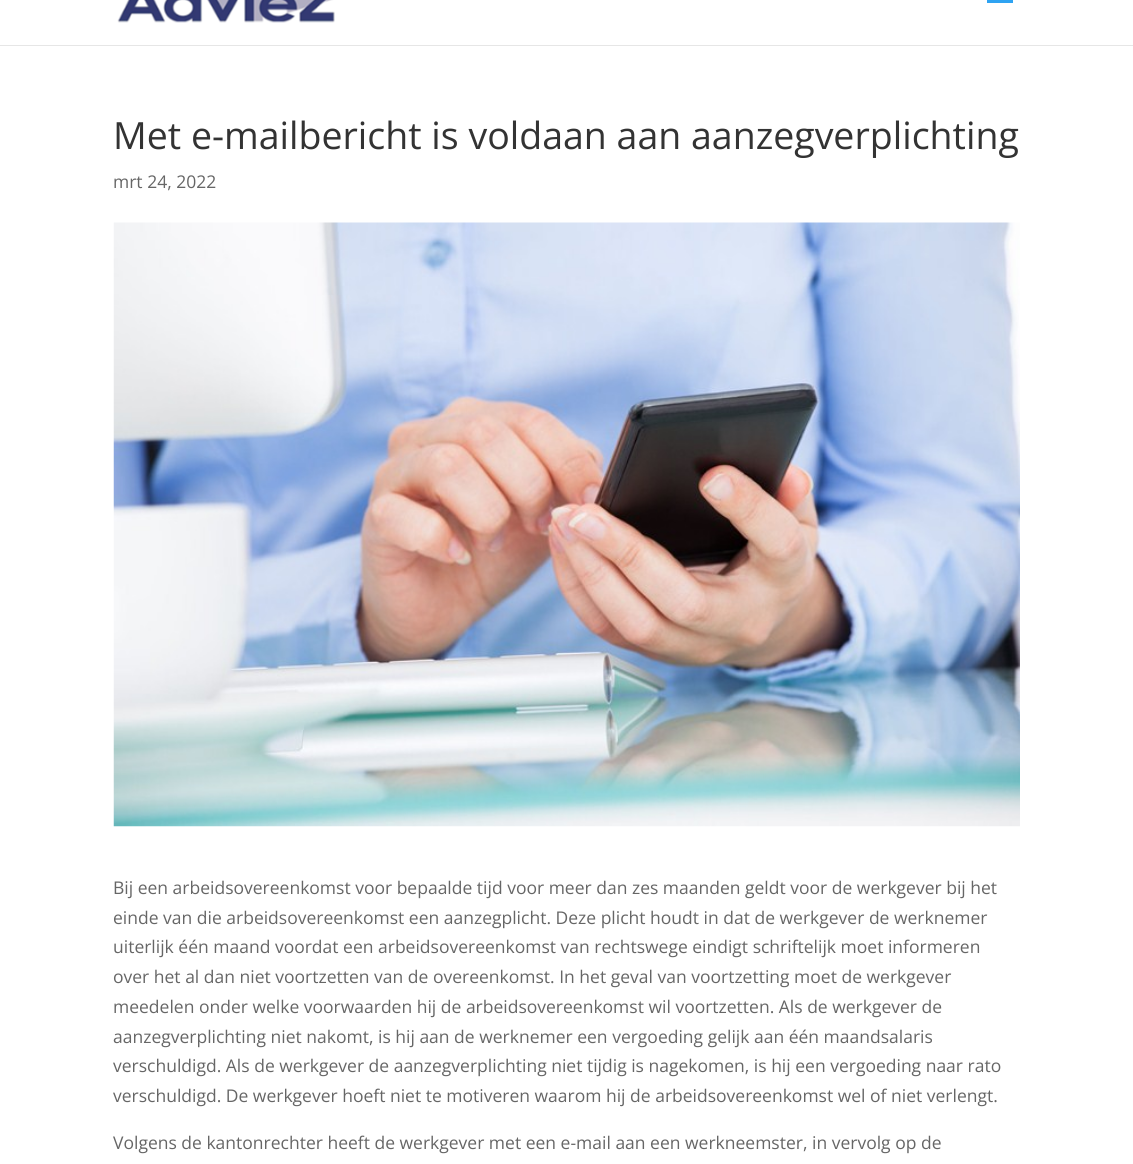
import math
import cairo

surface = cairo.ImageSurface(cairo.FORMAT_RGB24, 1133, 1164)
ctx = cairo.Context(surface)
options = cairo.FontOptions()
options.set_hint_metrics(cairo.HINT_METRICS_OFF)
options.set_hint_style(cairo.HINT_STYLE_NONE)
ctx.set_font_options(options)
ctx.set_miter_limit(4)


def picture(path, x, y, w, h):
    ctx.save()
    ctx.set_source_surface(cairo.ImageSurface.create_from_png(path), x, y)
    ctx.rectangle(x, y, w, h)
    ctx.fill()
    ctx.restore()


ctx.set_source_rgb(1, 1, 1)
ctx.paint()
ctx.set_source_rgb(0.902, 0.902, 0.902)
ctx.new_path()
ctx.move_to(0, 45)
ctx.line_to(0, 46)
ctx.line_to(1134, 46)
ctx.line_to(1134, -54)
ctx.line_to(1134, 45)
ctx.close_path()
ctx.fill()
picture("img1.png", 117, 0, 218, 23)
ctx.set_source_rgb(0.18, 0.639, 0.949)
ctx.rectangle(987, 0, 26, 3)
ctx.fill()
ctx.select_font_face("Open Sans")
ctx.set_font_size(37.5)
ctx.set_source_rgb(0.2, 0.2, 0.2)
ctx.move_to(113, 149)
ctx.show_text("Met e-mailbericht is voldaan aan aanzegverplichting")
ctx.set_font_size(17.5)
ctx.set_source_rgb(0.4, 0.4, 0.4)
ctx.move_to(113, 188)
ctx.show_text("mrt 24, 2022")
picture("img2.png", 113, 222, 907, 605)
ctx.move_to(113, 894)
ctx.show_text("Bij een arbeidsovereenkomst voor bepaalde tijd voor meer dan zes maanden geldt voor de werkgever bij het")
ctx.move_to(113, 924)
ctx.show_text("einde van die arbeidsovereenkomst een aanzegplicht. Deze plicht houdt in dat de werkgever de werknemer")
ctx.move_to(113, 953)
ctx.show_text("uiterlijk één maand voordat een arbeidsovereenkomst van rechtswege eindigt schriftelijk moet informeren")
ctx.move_to(113, 983)
ctx.show_text("over het al dan niet voortzetten van de overeenkomst. In het geval van voortzetting moet de werkgever")
ctx.move_to(113, 1013)
ctx.show_text("meedelen onder welke voorwaarden hij de arbeidsovereenkomst wil voortzetten. Als de werkgever de")
ctx.move_to(113, 1043)
ctx.show_text("aanzegverplichting niet nakomt, is hij aan de werknemer een vergoeding gelijk aan één maandsalaris")
ctx.move_to(113, 1072)
ctx.show_text("verschuldigd. Als de werkgever de aanzegverplichting niet tijdig is nagekomen, is hij een vergoeding naar rato")
ctx.move_to(113, 1102)
ctx.show_text("verschuldigd. De werkgever hoeft niet te motiveren waarom hij de arbeidsovereenkomst wel of niet verlengt.")
ctx.move_to(113, 1149)
ctx.show_text("Volgens de kantonrechter heeft de werkgever met een e-mail aan een werkneemster, in vervolg op de")
surface.write_to_png("page.png")
